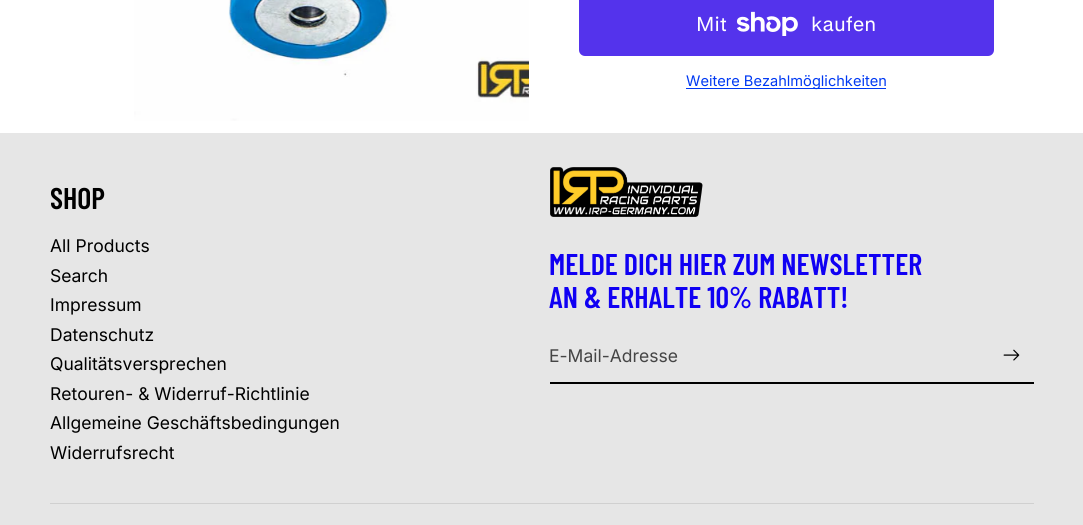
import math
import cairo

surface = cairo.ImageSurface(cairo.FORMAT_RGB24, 1083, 525)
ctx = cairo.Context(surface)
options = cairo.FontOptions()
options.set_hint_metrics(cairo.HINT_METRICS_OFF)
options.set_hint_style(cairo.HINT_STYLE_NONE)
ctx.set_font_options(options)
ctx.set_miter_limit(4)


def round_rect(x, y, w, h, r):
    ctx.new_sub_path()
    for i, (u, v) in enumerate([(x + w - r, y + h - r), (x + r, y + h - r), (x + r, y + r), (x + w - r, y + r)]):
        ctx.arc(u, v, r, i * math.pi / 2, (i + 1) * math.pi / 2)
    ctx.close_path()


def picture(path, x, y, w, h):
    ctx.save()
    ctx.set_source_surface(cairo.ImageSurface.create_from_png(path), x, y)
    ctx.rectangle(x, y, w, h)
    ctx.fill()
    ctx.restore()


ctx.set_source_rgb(1, 1, 1)
ctx.paint()
picture("img1.png", 134, 0, 395, 121)
ctx.set_source_rgb(0.329, 0.2, 0.922)
round_rect(579, -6, 415, 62, 6)
ctx.fill()
ctx.select_font_face("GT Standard")
ctx.set_font_size(20)
ctx.set_source_rgb(1, 1, 1)
ctx.move_to(696, 31)
ctx.show_text("Mit")
picture("img2.png", 736, 11, 62, 25)
ctx.move_to(811, 31)
ctx.show_text("kaufen")
ctx.set_source_rgb(0, 0.224, 0.953)
ctx.rectangle(686, 88, 200, 1)
ctx.fill()
ctx.select_font_face("Inter")
ctx.set_font_size(14.6)
ctx.move_to(686, 86)
ctx.show_text("Weitere Bezahlmöglichkeiten")
ctx.set_source_rgb(0.902, 0.902, 0.902)
ctx.rectangle(0, 133, 1083, 392)
ctx.fill()
ctx.select_font_face("Barlow Condensed SemiBold")
ctx.set_font_size(30)
ctx.set_source_rgb(0, 0, 0)
ctx.move_to(50, 209)
ctx.show_text("SHOP")
ctx.select_font_face("Inter")
ctx.set_font_size(17.5)
ctx.move_to(50, 252)
ctx.show_text("All Products")
ctx.move_to(50, 282)
ctx.show_text("Search")
ctx.move_to(50, 311)
ctx.show_text("Impressum")
ctx.move_to(50, 341)
ctx.show_text("Datenschutz")
ctx.move_to(50, 370)
ctx.show_text("Qualitätsversprechen")
ctx.move_to(50, 400)
ctx.show_text("Retouren- & Widerruf-Richtlinie")
ctx.move_to(50, 429)
ctx.show_text("Allgemeine Geschäftsbedingungen")
ctx.move_to(50, 459)
ctx.show_text("Widerrufsrecht")
picture("img3.png", 550, 167, 153, 50)
ctx.select_font_face("Barlow Condensed SemiBold")
ctx.set_font_size(30)
ctx.set_source_rgb(0.063, 0, 0.953)
ctx.move_to(549, 275)
ctx.show_text("MELDE DICH HIER ZUM NEWSLETTER")
ctx.move_to(549, 308)
ctx.show_text("AN & ERHALTE 10% RABATT!")
ctx.set_source_rgb(0, 0, 0)
ctx.new_path()
ctx.move_to(550, 382)
ctx.line_to(550, 384)
ctx.line_to(1034, 384)
ctx.line_to(1034, 330)
ctx.line_to(1034, 382)
ctx.close_path()
ctx.fill()
ctx.select_font_face("Inter")
ctx.set_font_size(17.5)
ctx.set_source_rgb(0.271, 0.271, 0.271)
ctx.move_to(549, 362)
ctx.show_text("E-Mail-Adresse")
picture("img4.png", 1003, 349, 17, 12)
ctx.set_source_rgb(0.816, 0.816, 0.816)
ctx.rectangle(50, 503, 984, 1)
ctx.fill()
surface.write_to_png("page.png")
